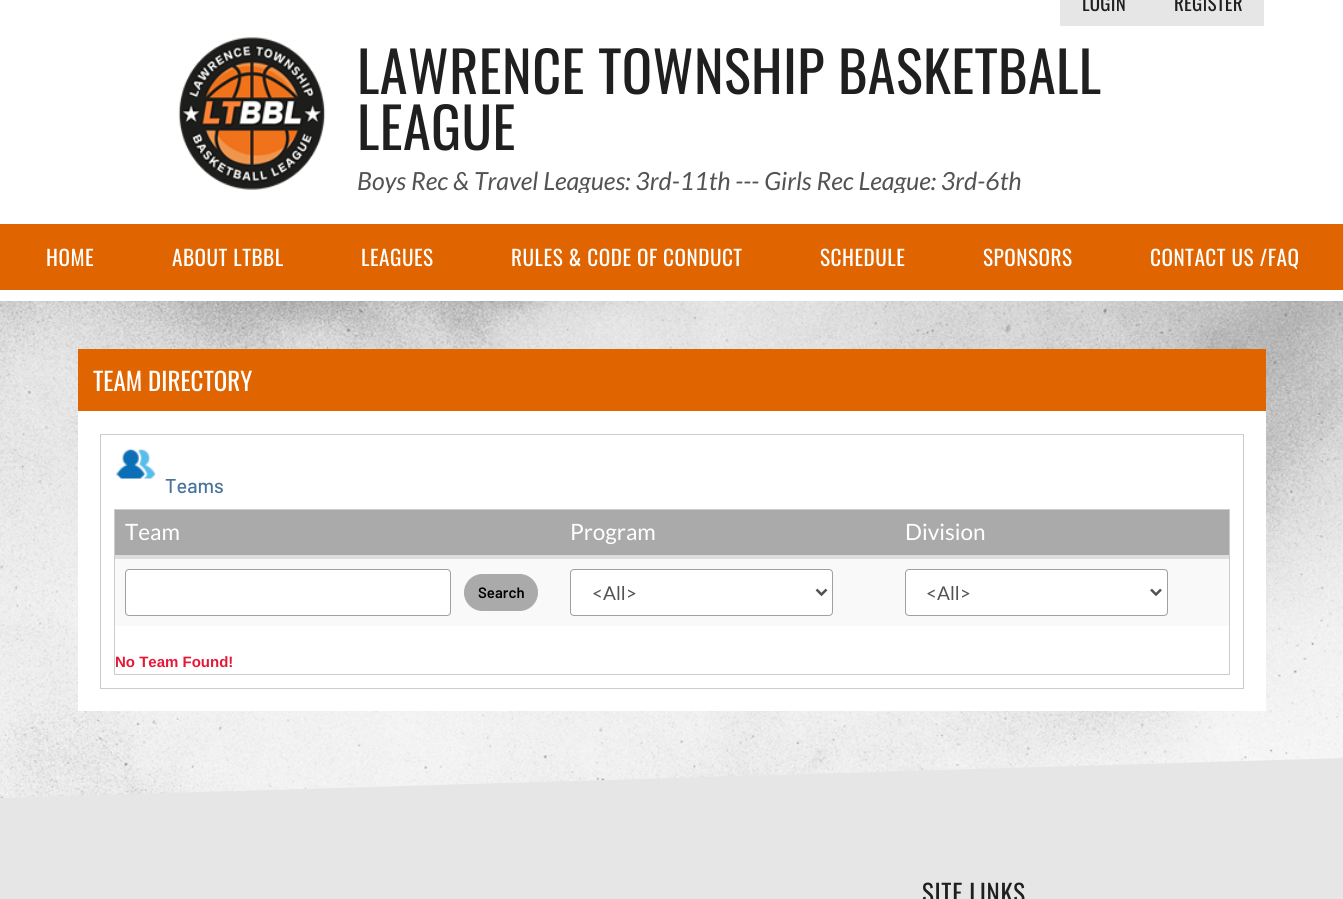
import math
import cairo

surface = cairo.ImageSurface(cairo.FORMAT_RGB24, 1343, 899)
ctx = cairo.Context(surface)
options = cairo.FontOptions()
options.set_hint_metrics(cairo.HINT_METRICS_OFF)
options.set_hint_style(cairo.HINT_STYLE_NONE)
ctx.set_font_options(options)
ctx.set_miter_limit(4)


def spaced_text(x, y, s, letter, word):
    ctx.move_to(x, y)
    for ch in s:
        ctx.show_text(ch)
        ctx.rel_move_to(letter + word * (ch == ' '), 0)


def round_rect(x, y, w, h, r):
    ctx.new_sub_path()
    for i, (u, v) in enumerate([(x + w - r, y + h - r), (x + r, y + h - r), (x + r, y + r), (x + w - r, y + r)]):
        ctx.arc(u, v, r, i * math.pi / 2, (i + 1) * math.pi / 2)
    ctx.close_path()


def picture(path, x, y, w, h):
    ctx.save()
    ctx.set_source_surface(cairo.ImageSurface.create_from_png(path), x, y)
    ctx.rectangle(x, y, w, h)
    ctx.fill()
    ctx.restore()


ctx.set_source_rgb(1, 1, 1)
ctx.paint()
ctx.set_source_rgb(0.902, 0.902, 0.902)
ctx.rectangle(1060, 0, 204, 26)
ctx.fill()
ctx.select_font_face("Oswald")
ctx.set_font_size(19)
ctx.set_source_rgb(0.122, 0.122, 0.122)
spaced_text(1082, 11, "LOGIN", 0.25, 0)
spaced_text(1174, 11, "REGISTER", 0.25, 0)
picture("img1.png", 178, 37, 148, 153)
ctx.set_font_size(56.25)
spaced_text(357, 94, "LAWRENCE TOWNSHIP BASKETBALL", 0.4, 0)
spaced_text(357, 150, "LEAGUE", 0.4, 0)
ctx.save()
ctx.rectangle(356, 153, 888, 40)
ctx.clip()
ctx.select_font_face("Lato", cairo.FONT_SLANT_ITALIC)
ctx.set_font_size(25)
ctx.set_source_rgb(0.325, 0.325, 0.325)
ctx.move_to(357, 190)
ctx.show_text("Boys Rec & Travel Leagues: 3rd-11th --- Girls Rec League: 3rd-6th")
ctx.restore()
ctx.set_source_rgb(0.878, 0.396, 0)
ctx.rectangle(0, 224, 1343, 66)
ctx.fill()
ctx.set_font_size(21.25)
ctx.set_source_rgb(1, 1, 1)
spaced_text(46, 266, "HOME", 0.5, 0)
spaced_text(172, 266, "ABOUT LTBBL", 0.5, 0)
spaced_text(361, 266, "LEAGUES", 0.5, 0)
spaced_text(511, 266, "RULES & CODE OF CONDUCT", 0.5, 0)
spaced_text(820, 266, "SCHEDULE", 0.5, 0)
spaced_text(983, 266, "SPONSORS", 0.5, 0)
spaced_text(1150, 266, "CONTACT US /FAQ", 0.5, 0)
picture("img2.png", 0, 301, 1343, 497)
ctx.set_source_rgb(0.878, 0.396, 0)
ctx.rectangle(78, 349, 1188, 62)
ctx.fill()
ctx.set_font_size(25)
ctx.set_source_rgb(1, 1, 1)
ctx.move_to(93, 391)
ctx.show_text("TEAM DIRECTORY")
ctx.rectangle(78, 411, 1188, 300)
ctx.fill()
ctx.rectangle(100.5, 434.5, 1143, 254)
ctx.set_source_rgb(0.8, 0.8, 0.8)
ctx.set_line_width(1)
ctx.stroke()
picture("img3.png", 116, 449, 40, 30)
ctx.select_font_face("Barlow Medium")
ctx.set_font_size(20)
ctx.set_source_rgb(0.282, 0.455, 0.608)
ctx.move_to(165, 493)
ctx.show_text("Teams")
ctx.rectangle(114.5, 509.5, 1115, 165)
ctx.set_source_rgb(0.8, 0.8, 0.8)
ctx.stroke()
ctx.set_source_rgb(0.667, 0.667, 0.667)
ctx.rectangle(115, 510, 1114, 45)
ctx.fill()
ctx.set_source_rgb(0.867, 0.867, 0.867)
ctx.rectangle(115, 555, 1114, 3)
ctx.fill()
ctx.select_font_face("Lato")
ctx.set_font_size(22.5)
ctx.set_source_rgb(1, 1, 1)
ctx.move_to(125, 540)
ctx.show_text("Team")
ctx.move_to(570, 540)
ctx.show_text("Program")
ctx.move_to(905, 540)
ctx.show_text("Division")
ctx.set_source_rgb(0.973, 0.976, 0.98)
ctx.rectangle(115, 559, 1114, 67)
ctx.fill()
ctx.set_source_rgb(0.867, 0.867, 0.867)
ctx.rectangle(115, 558, 1114, 1)
ctx.fill()
ctx.set_source_rgb(1, 1, 1)
round_rect(125.5, 569.5, 325, 46, 3.5)
ctx.fill_preserve()
ctx.set_source_rgb(0.627, 0.627, 0.627)
ctx.stroke()
ctx.set_source_rgb(0.667, 0.667, 0.667)
round_rect(464.5, 574.5, 73, 36, 18)
ctx.fill_preserve()
ctx.stroke()
ctx.select_font_face("Barlow SemiBold")
ctx.set_font_size(15)
ctx.set_source_rgb(0, 0, 0)
ctx.move_to(478, 598)
ctx.show_text("Search")
ctx.set_source_rgb(1, 1, 1)
round_rect(570.5, 569.5, 262, 46, 3.5)
ctx.fill_preserve()
ctx.set_source_rgb(0.627, 0.627, 0.627)
ctx.stroke()
ctx.new_path()
ctx.move_to(816.5, 589.5)
ctx.line_to(821.5, 594.5)
ctx.line_to(826.5, 589.5)
ctx.set_source_rgb(0.322, 0.322, 0.322)
ctx.set_line_width(2.5)
ctx.stroke()
ctx.select_font_face("Lato")
ctx.set_font_size(19)
ctx.set_source_rgb(0.325, 0.325, 0.325)
ctx.move_to(592, 600)
ctx.show_text("<All>")
ctx.set_source_rgb(1, 1, 1)
round_rect(905.5, 569.5, 262, 46, 3.5)
ctx.fill_preserve()
ctx.set_source_rgb(0.627, 0.627, 0.627)
ctx.set_line_width(1)
ctx.stroke()
ctx.new_path()
ctx.move_to(1151, 589.5)
ctx.line_to(1156, 594.5)
ctx.line_to(1161, 589.5)
ctx.set_source_rgb(0.322, 0.322, 0.322)
ctx.set_line_width(2.5)
ctx.stroke()
ctx.set_source_rgb(0.325, 0.325, 0.325)
ctx.move_to(926, 600)
ctx.show_text("<All>")
ctx.select_font_face("Liberation Sans", cairo.FONT_SLANT_NORMAL, cairo.FONT_WEIGHT_BOLD)
ctx.set_font_size(15)
ctx.set_source_rgb(0.898, 0.098, 0.216)
ctx.move_to(115, 667)
ctx.show_text("No Team Found!")
ctx.set_source_rgb(0.902, 0.902, 0.902)
ctx.new_path()
ctx.move_to(0, 798)
ctx.line_to(0, 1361)
ctx.line_to(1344, 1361)
ctx.line_to(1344, 758)
ctx.close_path()
ctx.fill()
ctx.select_font_face("Oswald")
ctx.set_font_size(25)
ctx.set_source_rgb(0.122, 0.122, 0.122)
spaced_text(922, 903, "SITE LINKS", 0.6, 0)
surface.write_to_png("page.png")
